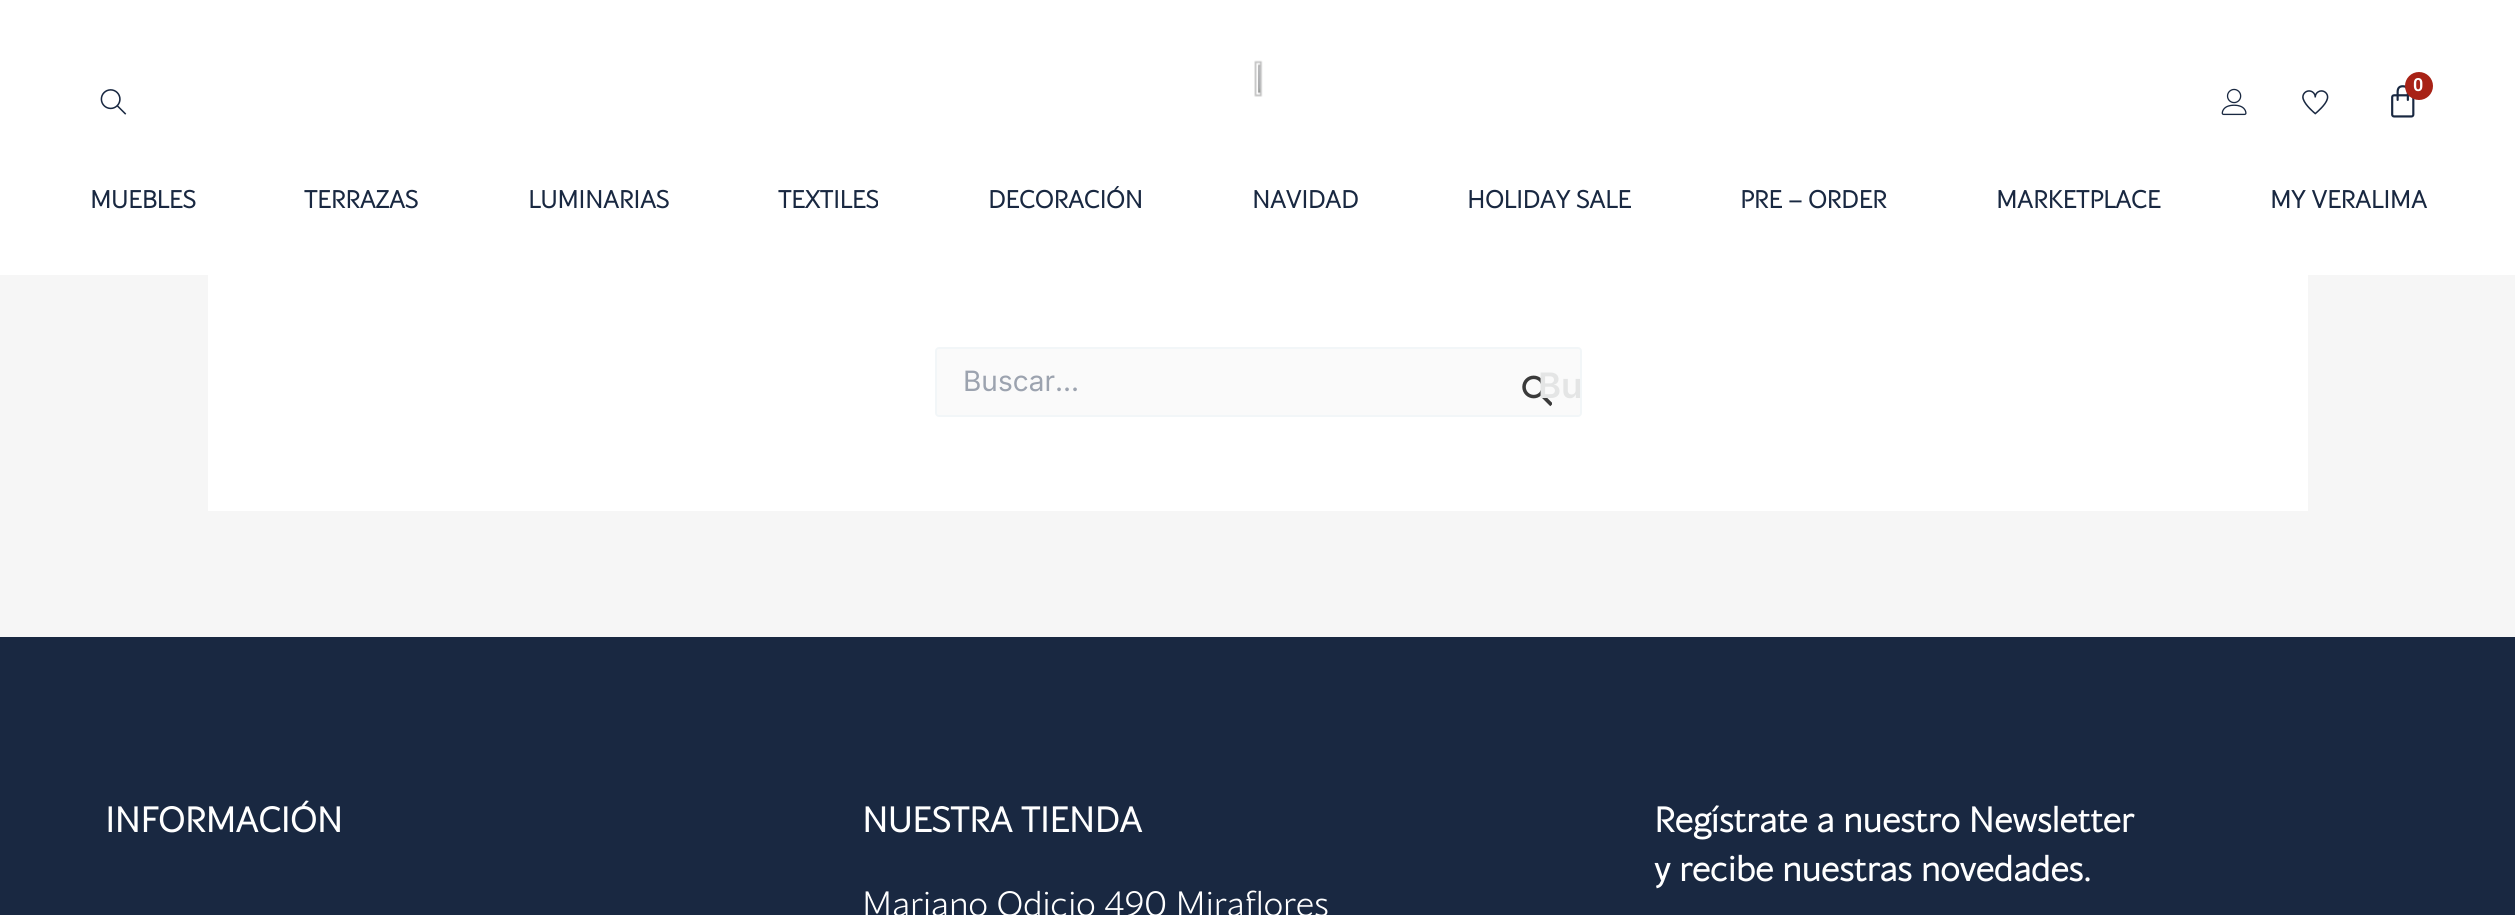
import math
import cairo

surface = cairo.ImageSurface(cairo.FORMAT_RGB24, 2515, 915)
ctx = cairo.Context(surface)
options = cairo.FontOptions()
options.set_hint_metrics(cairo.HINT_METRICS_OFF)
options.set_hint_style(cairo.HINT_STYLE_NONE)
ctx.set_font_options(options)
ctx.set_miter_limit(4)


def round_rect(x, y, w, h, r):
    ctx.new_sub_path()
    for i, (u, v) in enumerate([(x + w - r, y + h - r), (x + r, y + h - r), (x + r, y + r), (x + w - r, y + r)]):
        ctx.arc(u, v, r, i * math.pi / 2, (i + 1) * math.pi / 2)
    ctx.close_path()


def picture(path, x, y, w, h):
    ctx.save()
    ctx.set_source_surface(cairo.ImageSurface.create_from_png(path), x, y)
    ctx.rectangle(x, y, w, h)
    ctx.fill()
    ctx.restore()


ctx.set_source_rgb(0.961, 0.961, 0.961)
ctx.paint()
ctx.set_source_rgb(1, 1, 1)
ctx.rectangle(0, 0, 2515, 275)
ctx.fill()
picture("img1.png", 1254, 60, 9, 37)
picture("img2.png", 2391, 85, 24, 33)
ctx.set_source_rgb(0.659, 0.133, 0.086)
ctx.arc(2419, 86, 14, 0, 2 * math.pi)
ctx.fill()
ctx.select_font_face("Roboto SemiBold")
ctx.set_font_size(18)
ctx.set_source_rgb(1, 1, 1)
ctx.move_to(2413, 91)
ctx.show_text("0")
picture("img3.png", 2221, 88, 26, 28)
picture("img4.png", 2302, 90, 27, 25)
picture("img5.png", 100, 89, 27, 26)
ctx.select_font_face("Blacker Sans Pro", cairo.FONT_SLANT_NORMAL, cairo.FONT_WEIGHT_BOLD)
ctx.set_font_size(24.5)
ctx.set_source_rgb(0.098, 0.157, 0.255)
ctx.move_to(90, 208)
ctx.show_text("MUEBLES")
ctx.move_to(304, 208)
ctx.show_text("TERRAZAS")
ctx.move_to(528, 208)
ctx.show_text("LUMINARIAS")
ctx.move_to(778, 208)
ctx.show_text("TEXTILES")
ctx.move_to(988, 208)
ctx.show_text("DECORACIÓN")
ctx.move_to(1252, 208)
ctx.show_text("NAVIDAD")
ctx.move_to(1467, 208)
ctx.show_text("HOLIDAY SALE")
ctx.move_to(1740, 208)
ctx.show_text("PRE – ORDER")
ctx.move_to(1996, 208)
ctx.show_text("MARKETPLACE")
ctx.move_to(2270, 208)
ctx.show_text("MY VERALIMA")
ctx.set_source_rgb(1, 1, 1)
ctx.rectangle(208, 275, 2100, 236)
ctx.fill()
ctx.set_source_rgb(0.98, 0.98, 0.98)
round_rect(936, 348, 645, 68, 3)
ctx.fill_preserve()
ctx.set_source_rgb(0.949, 0.961, 0.969)
ctx.stroke()
ctx.select_font_face("Inter")
ctx.set_font_size(28)
ctx.set_source_rgb(0.612, 0.639, 0.686)
ctx.move_to(963, 391)
ctx.show_text("Buscar...")
picture("img6.png", 1522, 375, 30, 32)
ctx.select_font_face("Inter SemiBold")
ctx.set_font_size(35)
ctx.set_source_rgb(0.894, 0.898, 0.898)
ctx.move_to(1538, 398)
ctx.show_text("Bu")
ctx.set_source_rgb(0.098, 0.157, 0.255)
ctx.rectangle(0, 637, 2515, 278)
ctx.fill()
ctx.select_font_face("Blacker Sans Pro", cairo.FONT_SLANT_NORMAL, cairo.FONT_WEIGHT_BOLD)
ctx.set_source_rgb(1, 1, 1)
ctx.move_to(105, 832)
ctx.show_text("INFORMACIÓN")
ctx.move_to(862, 832)
ctx.show_text("NUESTRA TIENDA")
ctx.select_font_face("Blacker Sans Pro Light")
ctx.move_to(862, 916)
ctx.show_text("Mariano Odicio 490 Miraflores")
ctx.select_font_face("Blacker Sans Pro", cairo.FONT_SLANT_NORMAL, cairo.FONT_WEIGHT_BOLD)
ctx.move_to(1654, 832)
ctx.show_text("Regístrate a nuestro Newsletter")
ctx.move_to(1654, 881)
ctx.show_text("y recibe nuestras novedades.")
surface.write_to_png("page.png")
